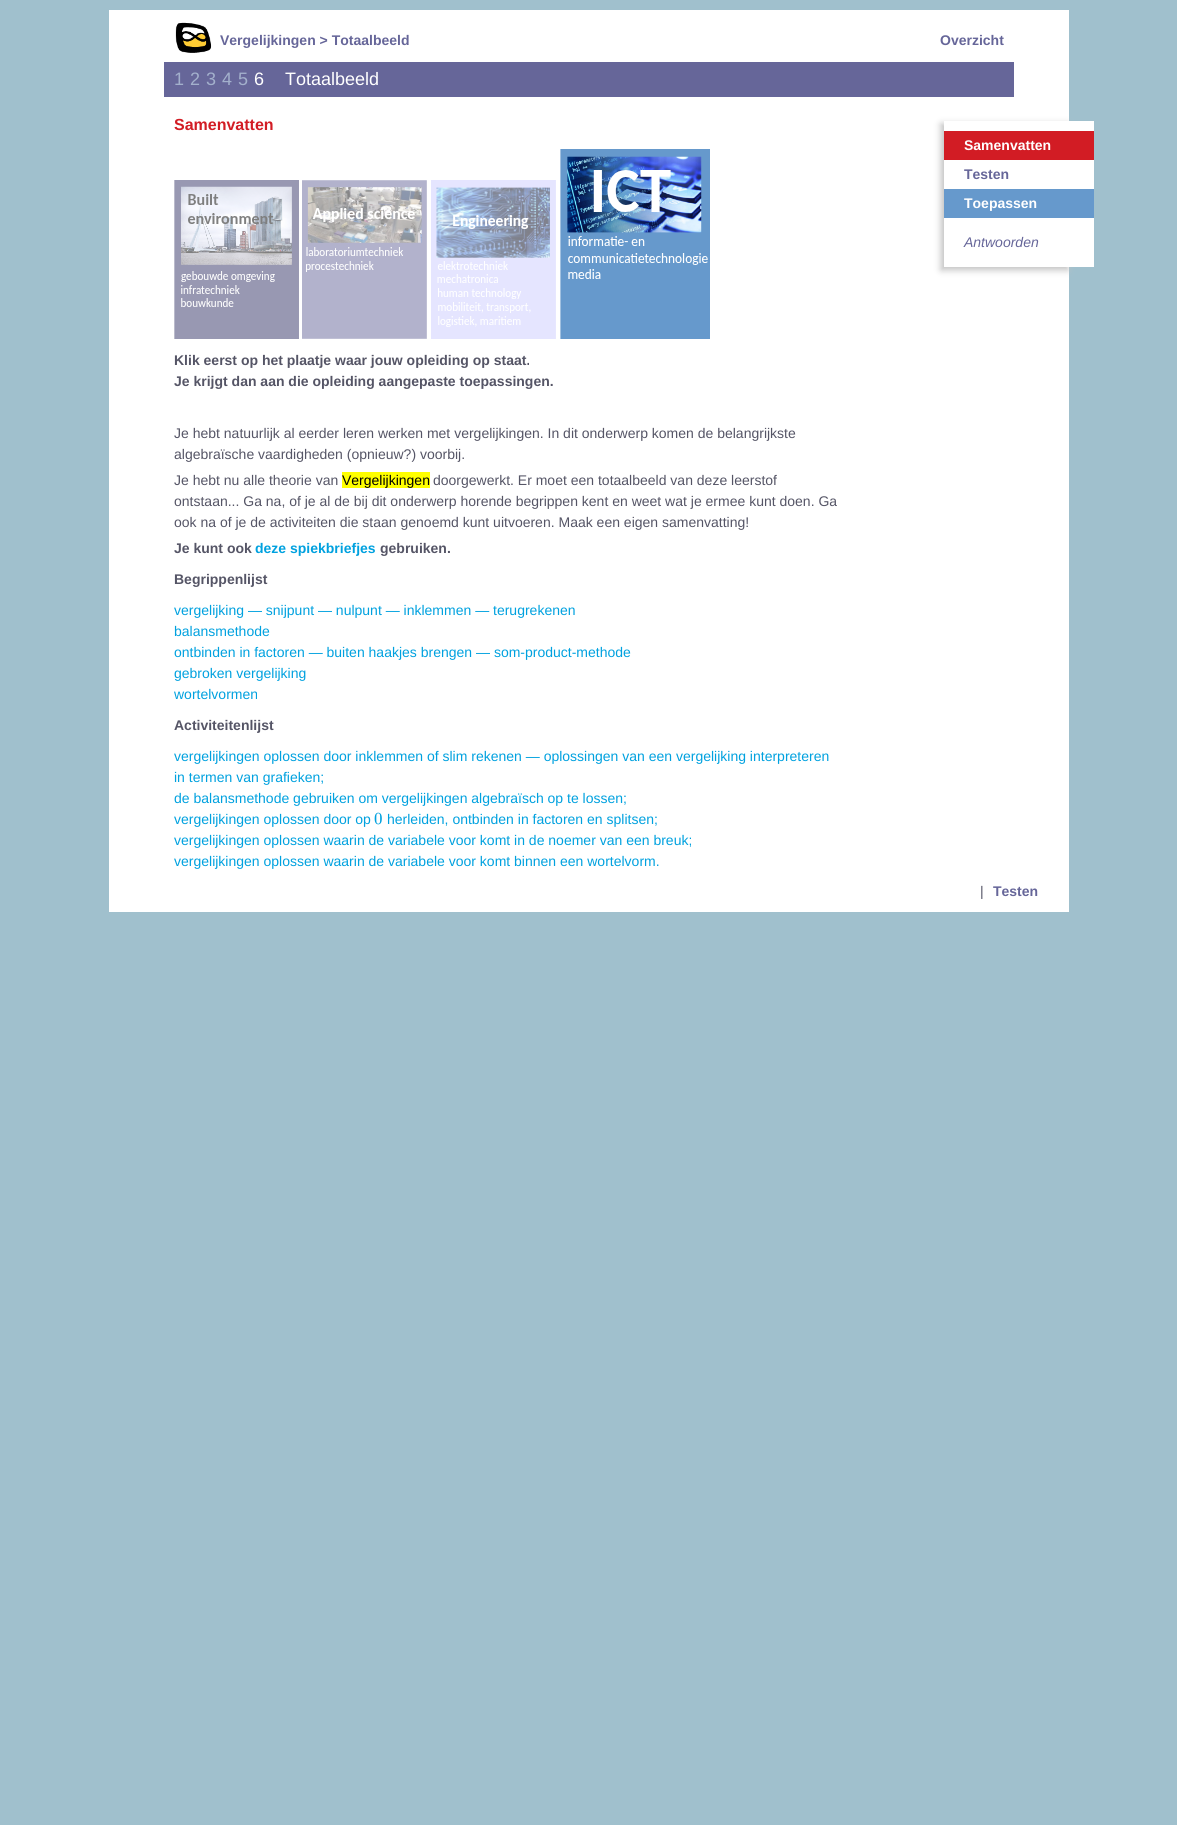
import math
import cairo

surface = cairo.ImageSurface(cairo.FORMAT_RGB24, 1177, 1825)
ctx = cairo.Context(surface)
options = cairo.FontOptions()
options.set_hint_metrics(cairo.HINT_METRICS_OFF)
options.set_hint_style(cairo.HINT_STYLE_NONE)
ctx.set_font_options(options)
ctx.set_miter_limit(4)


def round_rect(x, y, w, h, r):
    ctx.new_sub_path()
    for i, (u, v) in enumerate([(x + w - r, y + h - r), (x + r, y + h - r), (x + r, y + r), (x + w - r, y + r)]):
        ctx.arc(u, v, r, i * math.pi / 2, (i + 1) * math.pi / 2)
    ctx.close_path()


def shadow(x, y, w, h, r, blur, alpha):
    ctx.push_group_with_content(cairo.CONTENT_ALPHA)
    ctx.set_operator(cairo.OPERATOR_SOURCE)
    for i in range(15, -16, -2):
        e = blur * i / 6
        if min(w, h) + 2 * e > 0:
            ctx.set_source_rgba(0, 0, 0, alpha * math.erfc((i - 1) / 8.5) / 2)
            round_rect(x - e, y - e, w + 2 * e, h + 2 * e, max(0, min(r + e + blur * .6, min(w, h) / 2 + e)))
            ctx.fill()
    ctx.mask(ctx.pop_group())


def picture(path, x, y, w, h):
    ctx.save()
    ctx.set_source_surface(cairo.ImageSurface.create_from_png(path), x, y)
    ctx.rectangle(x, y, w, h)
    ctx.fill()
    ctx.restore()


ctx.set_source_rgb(0.627, 0.753, 0.804)
ctx.paint()
ctx.set_source_rgb(1, 1, 1)
ctx.rectangle(109, 10, 960, 902)
ctx.fill()
picture("img1.png", 175, 22, 37, 31)
ctx.select_font_face("Liberation Sans", cairo.FONT_SLANT_NORMAL, cairo.FONT_WEIGHT_BOLD)
ctx.set_font_size(14)
ctx.set_source_rgb(0.4, 0.4, 0.6)
ctx.move_to(220, 45)
ctx.show_text("Vergelijkingen > Totaalbeeld")
ctx.move_to(940, 45)
ctx.show_text("Overzicht")
ctx.rectangle(164, 62, 850, 35)
ctx.fill()
ctx.select_font_face("Liberation Sans")
ctx.set_font_size(18)
ctx.set_source_rgb(0.639, 0.69, 0.8)
ctx.move_to(174, 85)
ctx.show_text("1")
ctx.move_to(190, 85)
ctx.show_text("2")
ctx.move_to(206, 85)
ctx.show_text("3")
ctx.move_to(222, 85)
ctx.show_text("4")
ctx.move_to(238, 85)
ctx.show_text("5")
ctx.set_source_rgb(1, 1, 1)
ctx.move_to(254, 85)
ctx.show_text("6")
ctx.move_to(285, 85)
ctx.show_text("Totaalbeeld")
ctx.select_font_face("Liberation Sans", cairo.FONT_SLANT_NORMAL, cairo.FONT_WEIGHT_BOLD)
ctx.set_font_size(16)
ctx.set_source_rgb(0.824, 0.11, 0.141)
ctx.move_to(174, 130)
ctx.show_text("Samenvatten")
picture("img2.png", 174, 180, 125, 159)
picture("img3.png", 302, 180, 125, 159)
picture("img4.png", 431, 180, 125, 159)
picture("img5.png", 560, 149, 150, 190)
ctx.set_font_size(14)
ctx.set_source_rgb(0.333, 0.333, 0.4)
ctx.move_to(174, 365)
ctx.show_text("Klik eerst op het plaatje waar jouw opleiding op staat.")
ctx.move_to(174, 386)
ctx.show_text("Je krijgt dan aan die opleiding aangepaste toepassingen.")
ctx.select_font_face("Liberation Sans")
ctx.move_to(174, 438)
ctx.show_text("Je hebt natuurlijk al eerder leren werken met vergelijkingen. In dit onderwerp komen de belangrijkste")
ctx.move_to(174, 459)
ctx.show_text("algebraïsche vaardigheden (opnieuw?) voorbij.")
ctx.move_to(174, 485)
ctx.show_text("Je hebt nu alle theorie van")
ctx.set_source_rgb(1, 1, 0)
ctx.rectangle(342, 472, 88, 16)
ctx.fill()
ctx.set_source_rgb(0, 0, 0)
ctx.move_to(342, 485)
ctx.show_text("Vergelijkingen")
ctx.set_source_rgb(0.333, 0.333, 0.4)
ctx.move_to(433, 485)
ctx.show_text("doorgewerkt. Er moet een totaalbeeld van deze leerstof")
ctx.move_to(174, 506)
ctx.show_text("ontstaan... Ga na, of je al de bij dit onderwerp horende begrippen kent en weet wat je ermee kunt doen. Ga")
ctx.move_to(174, 527)
ctx.show_text("ook na of je de activiteiten die staan genoemd kunt uitvoeren. Maak een eigen samenvatting!")
ctx.select_font_face("Liberation Sans", cairo.FONT_SLANT_NORMAL, cairo.FONT_WEIGHT_BOLD)
ctx.move_to(174, 553)
ctx.show_text("Je kunt ook")
ctx.set_source_rgb(0, 0.631, 0.875)
ctx.move_to(255, 553)
ctx.show_text("deze spiekbriefjes")
ctx.set_source_rgb(0.333, 0.333, 0.4)
ctx.move_to(380, 553)
ctx.show_text("gebruiken.")
ctx.move_to(174, 584)
ctx.show_text("Begrippenlijst")
ctx.select_font_face("Liberation Sans")
ctx.set_source_rgb(0, 0.631, 0.875)
ctx.move_to(174, 615)
ctx.show_text("vergelijking — snijpunt — nulpunt — inklemmen — terugrekenen")
ctx.move_to(174, 636)
ctx.show_text("balansmethode")
ctx.move_to(174, 657)
ctx.show_text("ontbinden in factoren — buiten haakjes brengen — som-product-methode")
ctx.move_to(174, 678)
ctx.show_text("gebroken vergelijking")
ctx.move_to(174, 699)
ctx.show_text("wortelvormen")
ctx.select_font_face("Liberation Sans", cairo.FONT_SLANT_NORMAL, cairo.FONT_WEIGHT_BOLD)
ctx.set_source_rgb(0.333, 0.333, 0.4)
ctx.move_to(174, 730)
ctx.show_text("Activiteitenlijst")
ctx.select_font_face("Liberation Sans")
ctx.set_source_rgb(0, 0.631, 0.875)
ctx.move_to(174, 761)
ctx.show_text("vergelijkingen oplossen door inklemmen of slim rekenen — oplossingen van een vergelijking interpreteren")
ctx.move_to(174, 782)
ctx.show_text("in termen van grafieken;")
ctx.move_to(174, 803)
ctx.show_text("de balansmethode gebruiken om vergelijkingen algebraïsch op te lossen;")
ctx.move_to(174, 824)
ctx.show_text("vergelijkingen oplossen door op")
ctx.select_font_face("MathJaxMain")
ctx.set_font_size(17)
ctx.move_to(374, 824)
ctx.show_text("0")
ctx.select_font_face("Liberation Sans")
ctx.set_font_size(14)
ctx.move_to(387, 824)
ctx.show_text("herleiden, ontbinden in factoren en splitsen;")
ctx.move_to(174, 845)
ctx.show_text("vergelijkingen oplossen waarin de variabele voor komt in de noemer van een breuk;")
ctx.move_to(174, 866)
ctx.show_text("vergelijkingen oplossen waarin de variabele voor komt binnen een wortelvorm.")
ctx.set_source_rgb(0.753, 0.753, 0.753)
shadow(941, 124, 127, 146, 0, 3.5, 1)
ctx.set_source_rgb(1, 1, 1)
ctx.rectangle(944, 121, 150, 146)
ctx.fill()
ctx.set_source_rgb(0.824, 0.11, 0.141)
ctx.rectangle(944, 131, 150, 29)
ctx.fill()
ctx.select_font_face("Liberation Sans", cairo.FONT_SLANT_NORMAL, cairo.FONT_WEIGHT_BOLD)
ctx.set_source_rgb(1, 1, 1)
ctx.move_to(964, 150)
ctx.show_text("Samenvatten")
ctx.set_source_rgb(0.4, 0.4, 0.6)
ctx.move_to(964, 179)
ctx.show_text("Testen")
ctx.set_source_rgb(0.4, 0.6, 0.8)
ctx.rectangle(944, 189, 150, 29)
ctx.fill()
ctx.set_source_rgb(1, 1, 1)
ctx.move_to(964, 208)
ctx.show_text("Toepassen")
ctx.select_font_face("Liberation Sans", cairo.FONT_SLANT_ITALIC)
ctx.set_source_rgb(0.4, 0.4, 0.6)
ctx.move_to(964, 247)
ctx.show_text("Antwoorden")
ctx.select_font_face("Liberation Sans")
ctx.set_source_rgb(0.333, 0.333, 0.4)
ctx.move_to(980, 896)
ctx.show_text("|")
ctx.select_font_face("Liberation Sans", cairo.FONT_SLANT_NORMAL, cairo.FONT_WEIGHT_BOLD)
ctx.set_source_rgb(0.4, 0.4, 0.6)
ctx.move_to(993, 896)
ctx.show_text("Testen")
surface.write_to_png("page.png")
